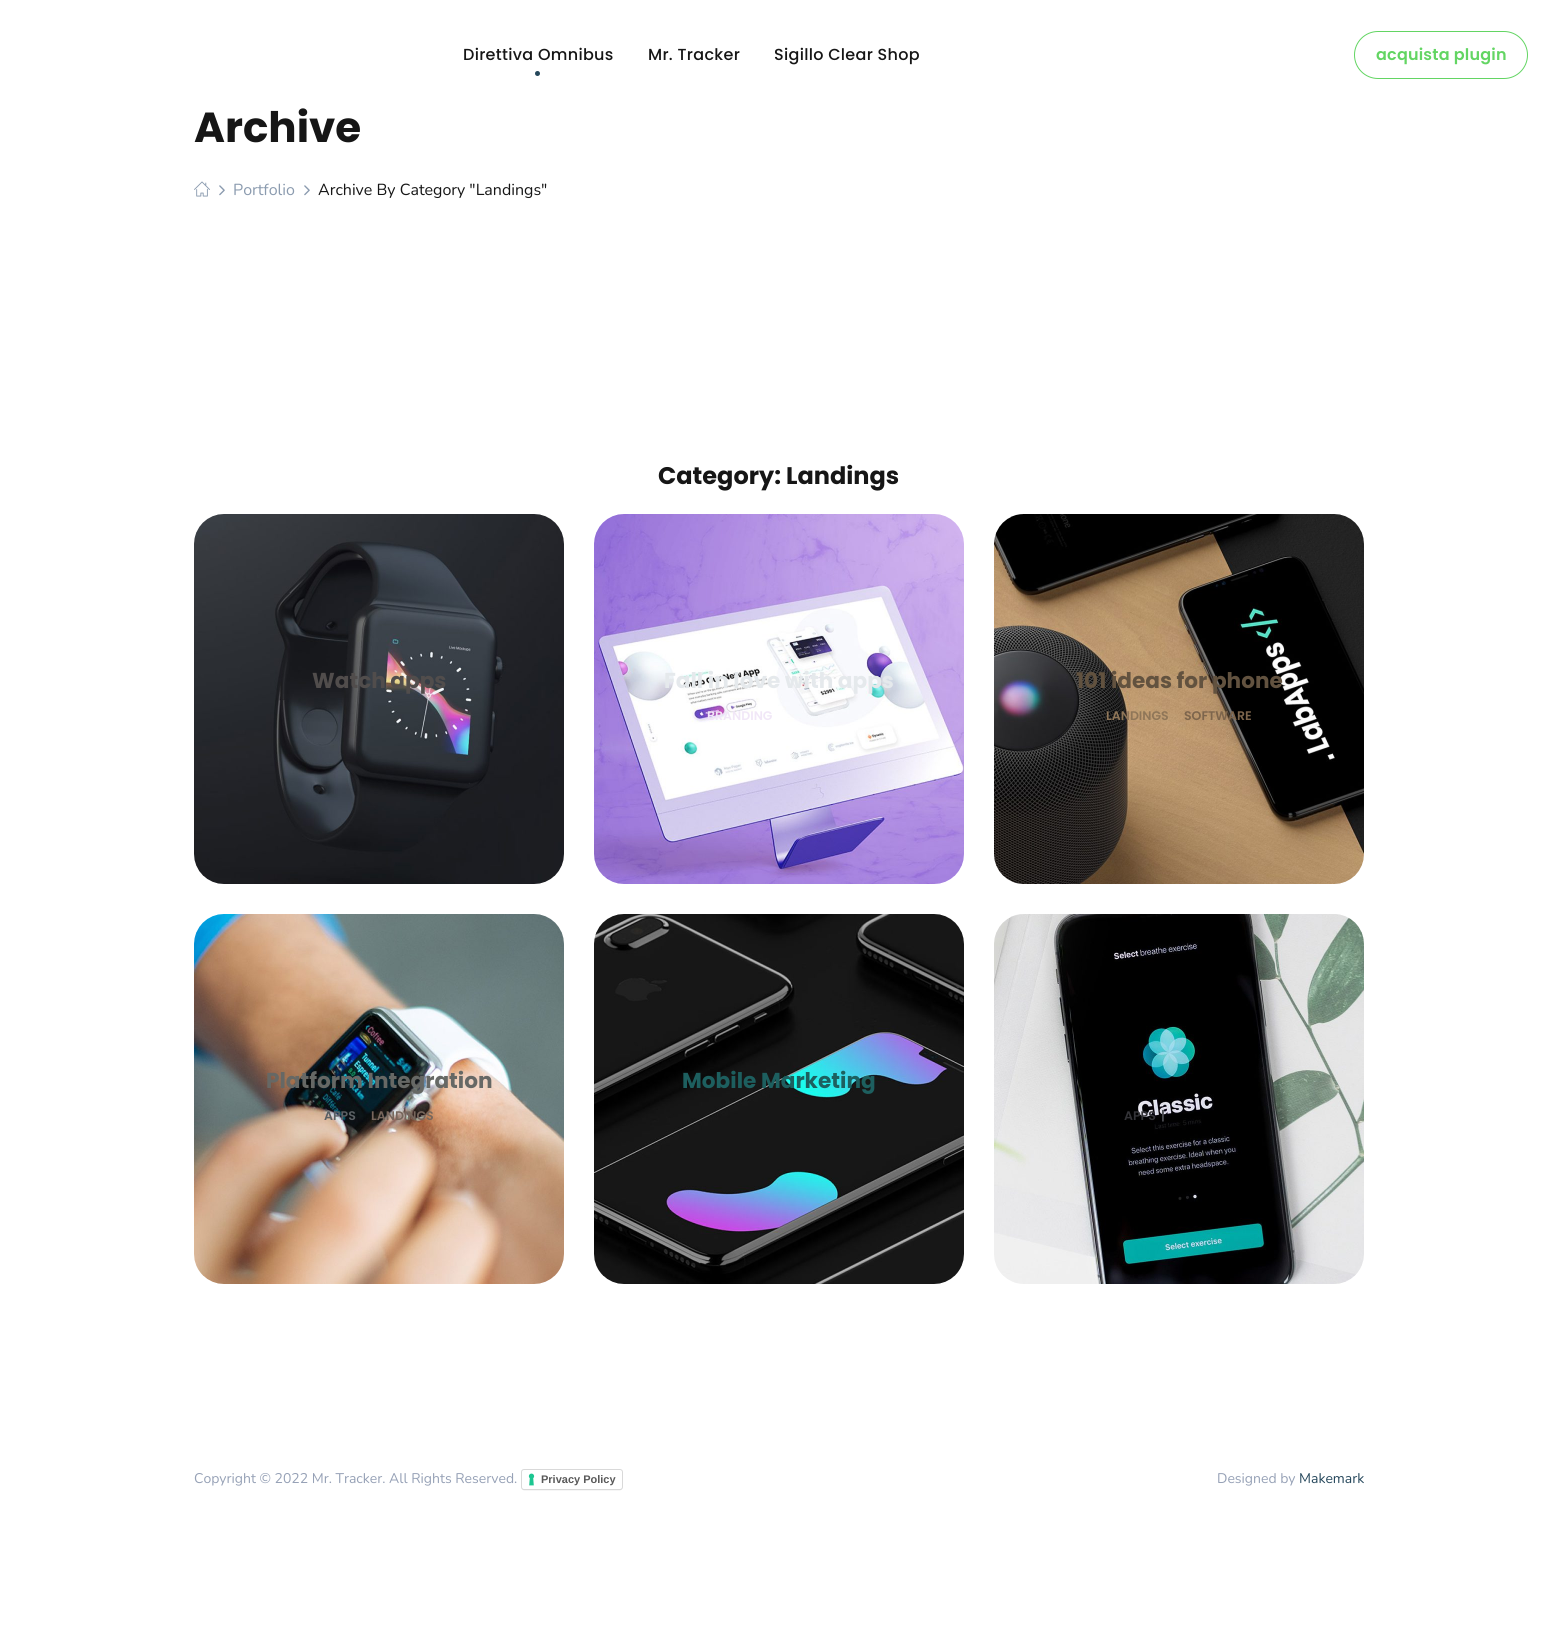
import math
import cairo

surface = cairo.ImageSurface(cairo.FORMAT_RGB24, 1558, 1634)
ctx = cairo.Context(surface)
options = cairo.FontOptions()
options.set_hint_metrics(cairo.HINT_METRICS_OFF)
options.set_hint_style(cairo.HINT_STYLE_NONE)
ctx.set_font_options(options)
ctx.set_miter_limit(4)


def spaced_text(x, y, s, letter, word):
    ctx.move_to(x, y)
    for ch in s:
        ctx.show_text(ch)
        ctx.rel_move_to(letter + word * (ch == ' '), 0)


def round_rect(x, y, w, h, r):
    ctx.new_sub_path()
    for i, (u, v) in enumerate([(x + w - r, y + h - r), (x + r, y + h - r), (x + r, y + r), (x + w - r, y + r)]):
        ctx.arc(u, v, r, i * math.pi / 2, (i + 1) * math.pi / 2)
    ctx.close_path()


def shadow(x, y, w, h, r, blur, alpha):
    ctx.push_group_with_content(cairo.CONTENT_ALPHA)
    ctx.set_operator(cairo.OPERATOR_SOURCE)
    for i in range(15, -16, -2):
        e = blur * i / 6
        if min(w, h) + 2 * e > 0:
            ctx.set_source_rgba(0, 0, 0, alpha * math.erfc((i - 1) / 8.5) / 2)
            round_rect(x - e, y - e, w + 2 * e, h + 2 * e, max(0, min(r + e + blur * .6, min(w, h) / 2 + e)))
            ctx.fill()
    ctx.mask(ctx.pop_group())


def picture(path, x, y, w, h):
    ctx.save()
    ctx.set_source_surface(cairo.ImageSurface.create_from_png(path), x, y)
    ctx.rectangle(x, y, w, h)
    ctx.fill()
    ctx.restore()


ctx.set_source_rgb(1, 1, 1)
ctx.paint()
ctx.select_font_face("Poppins Medium")
ctx.set_font_size(16)
ctx.set_source_rgb(0.086, 0.086, 0.086)
spaced_text(463, 60, "Direttiva Omnibus", 0.3, 0)
spaced_text(648, 60, "Mr. Tracker", 0.3, 0)
spaced_text(774, 60, "Sigillo Clear Shop", 0.3, 0)
ctx.set_source_rgb(0.145, 0.278, 0.357)
ctx.new_path()
ctx.arc(537.5, 73.5, 2.5, 0, 2 * math.pi)
ctx.fill()
round_rect(1354.5, 31.5, 173, 47, 23.5)
ctx.set_source_rgb(0.388, 0.835, 0.388)
ctx.set_line_width(1)
ctx.stroke()
ctx.select_font_face("Poppins SemiBold")
spaced_text(1376, 60, "acquista plugin", 0.2, 0)
ctx.select_font_face("Poppins", cairo.FONT_SLANT_NORMAL, cairo.FONT_WEIGHT_BOLD)
ctx.set_font_size(42)
ctx.set_source_rgb(0.086, 0.086, 0.086)
ctx.move_to(194, 142)
ctx.show_text("Archive")
picture("img1.png", 194, 181, 16, 16)
picture("img2.png", 219, 185, 6, 11)
ctx.select_font_face("Nunito")
ctx.set_font_size(16)
ctx.set_source_rgb(0.545, 0.608, 0.686)
ctx.move_to(233, 195)
ctx.show_text("Portfolio")
picture("img2.png", 304, 185, 6, 11)
ctx.set_source_rgb(0.086, 0.086, 0.086)
ctx.move_to(318, 195)
ctx.show_text("Archive By Category \"Landings\"")
ctx.select_font_face("Poppins", cairo.FONT_SLANT_NORMAL, cairo.FONT_WEIGHT_BOLD)
ctx.set_font_size(24)
ctx.move_to(658, 484)
ctx.show_text("Category: Landings")
picture("img3.png", 194, 514, 370, 370)
ctx.set_font_size(21.6)
ctx.set_source_rgb(0.318, 0.302, 0.298)
ctx.move_to(312, 688)
ctx.show_text("Watch apps")
picture("img4.png", 594, 514, 370, 370)
ctx.set_source_rgb(0.898, 0.914, 0.922)
ctx.move_to(664, 688)
ctx.show_text("Fall in love with apps")
ctx.select_font_face("Poppins SemiBold")
ctx.set_font_size(12.5)
ctx.set_source_rgb(0.945, 0.906, 0.965)
ctx.move_to(707, 720)
ctx.show_text("BRANDING")
picture("img5.png", 994, 514, 370, 370)
ctx.select_font_face("Poppins", cairo.FONT_SLANT_NORMAL, cairo.FONT_WEIGHT_BOLD)
ctx.set_font_size(21.6)
ctx.set_source_rgb(0.384, 0.322, 0.247)
ctx.move_to(1076, 688)
ctx.show_text("101 ideas for phone")
ctx.select_font_face("Poppins SemiBold")
ctx.set_font_size(12.5)
ctx.set_source_rgb(0.561, 0.463, 0.345)
ctx.move_to(1106, 720)
ctx.show_text("LANDINGS")
ctx.set_source_rgb(0.49, 0.396, 0.298)
ctx.move_to(1184, 720)
ctx.show_text("SOFTWARE")
picture("img6.png", 194, 914, 370, 370)
ctx.select_font_face("Poppins", cairo.FONT_SLANT_NORMAL, cairo.FONT_WEIGHT_BOLD)
ctx.set_font_size(21.6)
ctx.set_source_rgb(0.4, 0.408, 0.396)
ctx.move_to(266, 1088)
ctx.show_text("Platform Integration")
ctx.select_font_face("Poppins SemiBold")
ctx.set_font_size(12.5)
ctx.set_source_rgb(0.353, 0.376, 0.392)
ctx.move_to(324, 1120)
ctx.show_text("APPS")
ctx.set_source_rgb(0.467, 0.4, 0.361)
ctx.move_to(371, 1120)
ctx.show_text("LANDINGS")
picture("img7.png", 594, 914, 370, 370)
ctx.select_font_face("Poppins", cairo.FONT_SLANT_NORMAL, cairo.FONT_WEIGHT_BOLD)
ctx.set_font_size(21.6)
ctx.set_source_rgb(0.114, 0.373, 0.373)
ctx.move_to(682, 1088)
ctx.show_text("Mobile Marketing")
picture("img8.png", 994, 914, 370, 370)
ctx.select_font_face("Poppins SemiBold")
ctx.set_font_size(12.5)
ctx.set_source_rgb(0.2, 0.2, 0.216)
ctx.move_to(1124, 1120)
ctx.show_text("APPS")
ctx.set_source_rgb(0.29, 0.294, 0.322)
ctx.move_to(1161, 1120)
ctx.show_text("|")
ctx.select_font_face("Nunito")
ctx.set_font_size(14)
ctx.set_source_rgb(0.588, 0.631, 0.714)
ctx.move_to(194, 1483)
ctx.show_text("Copyright © 2022 Mr. Tracker. All Rights Reserved.")
ctx.set_source_rgb(0, 0, 0)
shadow(522, 1471, 100, 19, 2, 0.5, 0.15)
ctx.set_source_rgb(1, 1, 1)
round_rect(521, 1469, 102, 21, 3)
ctx.fill()
picture("img9.png", 528, 1473, 7, 13)
round_rect(521.5, 1469.5, 101, 20, 2.5)
ctx.set_source_rgba(0, 0, 0, 0.15)
ctx.stroke()
ctx.select_font_face("Liberation Sans", cairo.FONT_SLANT_NORMAL, cairo.FONT_WEIGHT_BOLD)
ctx.set_font_size(11)
ctx.set_source_rgb(0.349, 0.349, 0.349)
ctx.move_to(541, 1483)
ctx.show_text("Privacy Policy")
ctx.select_font_face("Nunito")
ctx.set_font_size(14)
ctx.set_source_rgb(0.588, 0.631, 0.714)
ctx.move_to(1217, 1483)
ctx.show_text("Designed by")
ctx.set_source_rgb(0.145, 0.278, 0.357)
ctx.move_to(1299, 1483)
ctx.show_text("Makemark")
surface.write_to_png("page.png")
